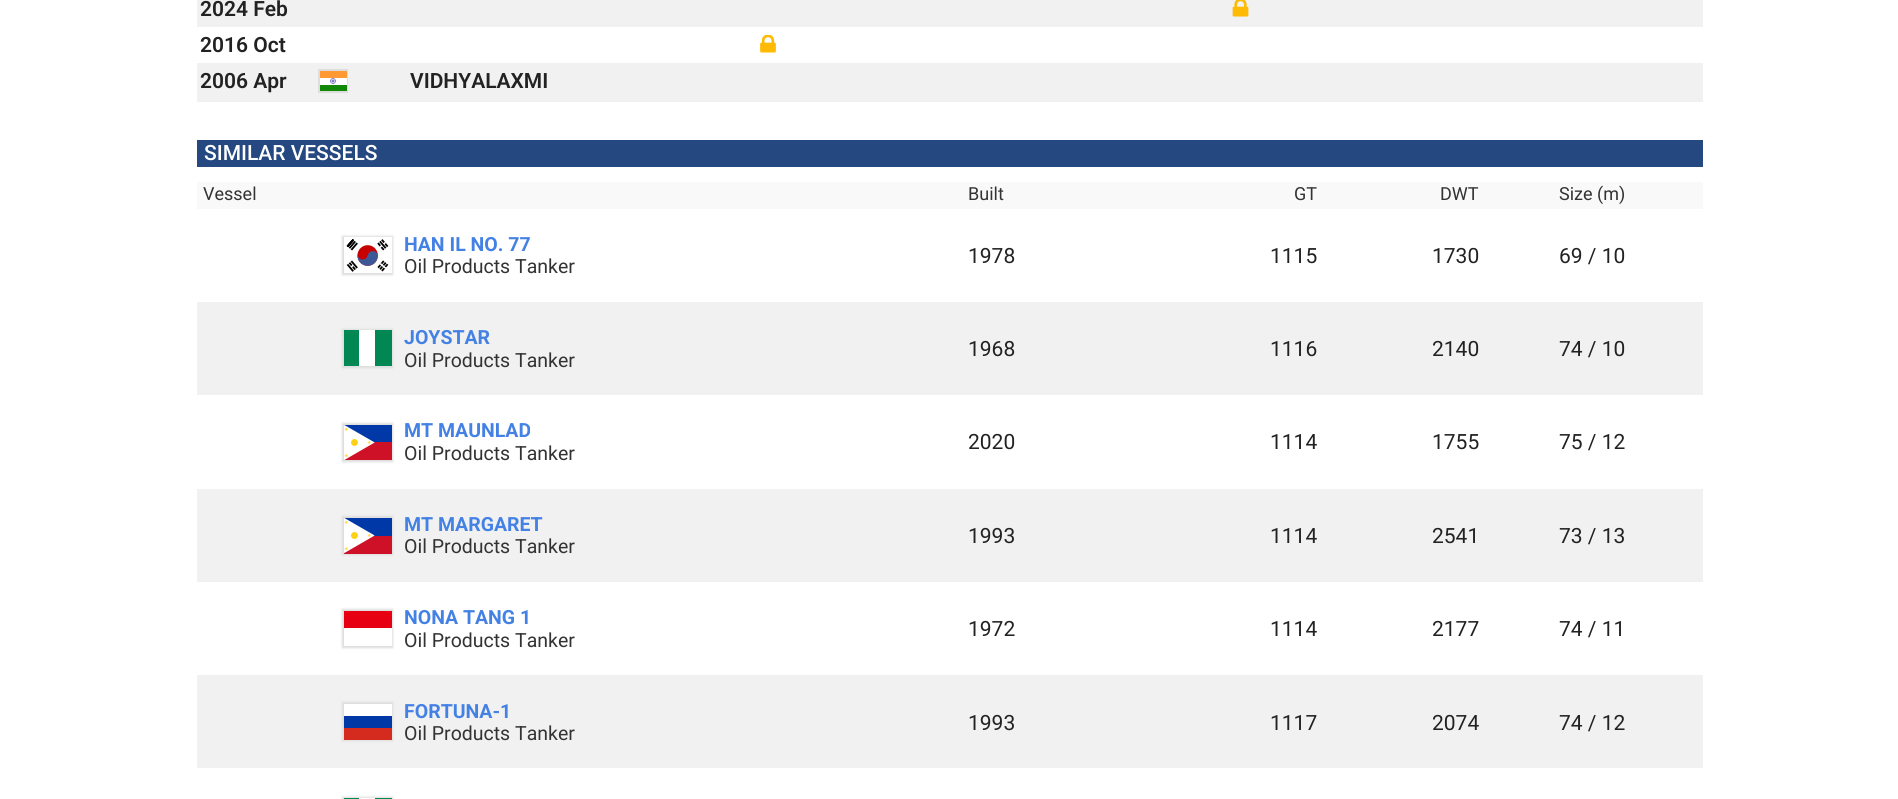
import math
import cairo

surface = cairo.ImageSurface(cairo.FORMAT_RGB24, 1898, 799)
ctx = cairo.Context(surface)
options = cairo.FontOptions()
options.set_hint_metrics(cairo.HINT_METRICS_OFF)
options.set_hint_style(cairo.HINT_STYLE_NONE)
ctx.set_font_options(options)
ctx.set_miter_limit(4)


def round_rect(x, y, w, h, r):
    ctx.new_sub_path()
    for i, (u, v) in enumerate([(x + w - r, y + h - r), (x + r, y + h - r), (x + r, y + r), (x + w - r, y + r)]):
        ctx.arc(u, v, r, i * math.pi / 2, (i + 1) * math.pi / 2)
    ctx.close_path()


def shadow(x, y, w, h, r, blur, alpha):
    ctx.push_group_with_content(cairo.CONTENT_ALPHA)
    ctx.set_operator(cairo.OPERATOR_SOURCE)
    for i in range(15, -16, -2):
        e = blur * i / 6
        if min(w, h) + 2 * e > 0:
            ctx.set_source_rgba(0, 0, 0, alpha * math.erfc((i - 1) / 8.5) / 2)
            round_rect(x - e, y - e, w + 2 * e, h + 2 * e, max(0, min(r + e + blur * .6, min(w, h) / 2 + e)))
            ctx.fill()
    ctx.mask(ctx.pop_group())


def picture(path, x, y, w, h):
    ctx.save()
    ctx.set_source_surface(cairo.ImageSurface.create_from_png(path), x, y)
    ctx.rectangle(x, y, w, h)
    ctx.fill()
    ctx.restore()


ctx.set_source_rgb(1, 1, 1)
ctx.paint()
ctx.set_source_rgb(0.945, 0.945, 0.945)
ctx.rectangle(197, 0, 1506, 27)
ctx.fill()
ctx.select_font_face("Roboto SemiBold")
ctx.set_font_size(21)
ctx.set_source_rgb(0.133, 0.133, 0.133)
ctx.move_to(200, 16)
ctx.show_text("2024 Feb")
picture("img1.png", 1232, 0, 17, 17)
ctx.move_to(200, 52)
ctx.show_text("2016 Oct")
picture("img2.png", 760, 35, 16, 18)
ctx.set_source_rgb(0.945, 0.945, 0.945)
ctx.rectangle(197, 63, 1506, 39)
ctx.fill()
ctx.set_source_rgb(0.133, 0.133, 0.133)
ctx.move_to(200, 88)
ctx.show_text("2006 Apr")
ctx.rectangle(319, 70, 28, 22)
ctx.set_source_rgb(0.867, 0.867, 0.867)
ctx.stroke()
picture("img3.png", 320, 71, 27, 20)
ctx.set_source_rgb(0.133, 0.133, 0.133)
ctx.move_to(410, 88)
ctx.show_text("VIDHYALAXMI")
ctx.set_source_rgb(0.145, 0.282, 0.506)
ctx.rectangle(197, 140, 1506, 27)
ctx.fill()
ctx.select_font_face("Roboto Medium")
ctx.set_source_rgb(1, 1, 1)
ctx.move_to(204, 160)
ctx.show_text("SIMILAR VESSELS")
ctx.set_source_rgb(0.973, 0.973, 0.973)
ctx.rectangle(197, 182, 1506, 27)
ctx.fill()
ctx.select_font_face("Roboto")
ctx.set_font_size(18)
ctx.set_source_rgb(0.2, 0.2, 0.2)
ctx.move_to(203, 200)
ctx.show_text("Vessel")
ctx.move_to(968, 200)
ctx.show_text("Built")
ctx.move_to(1294, 200)
ctx.show_text("GT")
ctx.move_to(1440, 200)
ctx.show_text("DWT")
ctx.move_to(1559, 200)
ctx.show_text("Size (m)")
ctx.save()
ctx.set_fill_rule(cairo.FILL_RULE_EVEN_ODD)
ctx.new_path()
ctx.move_to(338, 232)
ctx.line_to(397, 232)
ctx.line_to(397, 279)
ctx.line_to(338, 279)
ctx.close_path()
ctx.move_to(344, 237)
ctx.line_to(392, 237)
ctx.line_to(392, 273)
ctx.line_to(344, 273)
ctx.close_path()
ctx.clip()
ctx.set_source_rgb(0.867, 0.867, 0.867)
shadow(342, 236, 51, 39, 0, 1, 1)
ctx.restore()
picture("img4.png", 346, 237, 46, 36)
ctx.select_font_face("Roboto", cairo.FONT_SLANT_NORMAL, cairo.FONT_WEIGHT_BOLD)
ctx.set_font_size(19.5)
ctx.set_source_rgb(0.267, 0.506, 0.894)
ctx.move_to(404, 251)
ctx.show_text("HAN IL NO. 77")
ctx.select_font_face("Roboto")
ctx.set_source_rgb(0.2, 0.2, 0.2)
ctx.move_to(404, 273)
ctx.show_text("Oil Products Tanker")
ctx.set_font_size(21)
ctx.set_source_rgb(0.133, 0.133, 0.133)
ctx.move_to(968, 263)
ctx.show_text("1978")
ctx.move_to(1270, 263)
ctx.show_text("1115")
ctx.move_to(1432, 263)
ctx.show_text("1730")
ctx.move_to(1559, 263)
ctx.show_text("69 / 10")
ctx.set_source_rgb(0.945, 0.945, 0.945)
ctx.rectangle(197, 302, 1506, 93)
ctx.fill()
ctx.set_source_rgb(0.867, 0.867, 0.867)
shadow(342, 329, 51, 39, 0, 1, 1)
ctx.set_source_rgb(1, 1, 1)
ctx.rectangle(359, 330, 16, 36)
ctx.fill()
ctx.set_source_rgb(0, 0.529, 0.325)
ctx.set_fill_rule(cairo.FILL_RULE_EVEN_ODD)
ctx.new_path()
ctx.move_to(375, 330)
ctx.line_to(392, 330)
ctx.line_to(392, 366)
ctx.line_to(375, 366)
ctx.close_path()
ctx.move_to(344, 330)
ctx.line_to(359, 330)
ctx.line_to(359, 366)
ctx.line_to(344, 366)
ctx.close_path()
ctx.fill()
ctx.select_font_face("Roboto", cairo.FONT_SLANT_NORMAL, cairo.FONT_WEIGHT_BOLD)
ctx.set_font_size(19.5)
ctx.set_source_rgb(0.267, 0.506, 0.894)
ctx.move_to(404, 344)
ctx.show_text("JOYSTAR")
ctx.select_font_face("Roboto")
ctx.set_source_rgb(0.2, 0.2, 0.2)
ctx.move_to(404, 367)
ctx.show_text("Oil Products Tanker")
ctx.set_font_size(21)
ctx.set_source_rgb(0.133, 0.133, 0.133)
ctx.move_to(968, 356)
ctx.show_text("1968")
ctx.move_to(1270, 356)
ctx.show_text("1116")
ctx.move_to(1432, 356)
ctx.show_text("2140")
ctx.move_to(1559, 356)
ctx.show_text("74 / 10")
ctx.set_source_rgb(0.867, 0.867, 0.867)
shadow(342, 423, 51, 39, 0, 1, 1)
picture("img5.png", 344, 425, 48, 35)
ctx.select_font_face("Roboto", cairo.FONT_SLANT_NORMAL, cairo.FONT_WEIGHT_BOLD)
ctx.set_font_size(19.5)
ctx.set_source_rgb(0.267, 0.506, 0.894)
ctx.move_to(404, 437)
ctx.show_text("MT MAUNLAD")
ctx.select_font_face("Roboto")
ctx.set_source_rgb(0.2, 0.2, 0.2)
ctx.move_to(404, 460)
ctx.show_text("Oil Products Tanker")
ctx.set_font_size(21)
ctx.set_source_rgb(0.133, 0.133, 0.133)
ctx.move_to(968, 449)
ctx.show_text("2020")
ctx.move_to(1270, 449)
ctx.show_text("1114")
ctx.move_to(1432, 449)
ctx.show_text("1755")
ctx.move_to(1559, 449)
ctx.show_text("75 / 12")
ctx.set_source_rgb(0.945, 0.945, 0.945)
ctx.rectangle(197, 489, 1506, 93)
ctx.fill()
ctx.set_source_rgb(0.867, 0.867, 0.867)
shadow(342, 516, 51, 39, 0, 1, 1)
picture("img6.png", 344, 518, 48, 36)
ctx.select_font_face("Roboto", cairo.FONT_SLANT_NORMAL, cairo.FONT_WEIGHT_BOLD)
ctx.set_font_size(19.5)
ctx.set_source_rgb(0.267, 0.506, 0.894)
ctx.move_to(404, 531)
ctx.show_text("MT MARGARET")
ctx.select_font_face("Roboto")
ctx.set_source_rgb(0.2, 0.2, 0.2)
ctx.move_to(404, 553)
ctx.show_text("Oil Products Tanker")
ctx.set_font_size(21)
ctx.set_source_rgb(0.133, 0.133, 0.133)
ctx.move_to(968, 543)
ctx.show_text("1993")
ctx.move_to(1270, 543)
ctx.show_text("1114")
ctx.move_to(1432, 543)
ctx.show_text("2541")
ctx.move_to(1559, 543)
ctx.show_text("73 / 13")
ctx.set_source_rgb(0.867, 0.867, 0.867)
shadow(342, 609, 51, 39, 0, 1, 1)
ctx.set_source_rgb(0.906, 0, 0.067)
ctx.rectangle(344, 611, 48, 17)
ctx.fill()
ctx.set_source_rgb(1, 1, 1)
ctx.rectangle(344, 628, 48, 18)
ctx.fill()
ctx.select_font_face("Roboto", cairo.FONT_SLANT_NORMAL, cairo.FONT_WEIGHT_BOLD)
ctx.set_font_size(19.5)
ctx.set_source_rgb(0.267, 0.506, 0.894)
ctx.move_to(404, 624)
ctx.show_text("NONA TANG 1")
ctx.select_font_face("Roboto")
ctx.set_source_rgb(0.2, 0.2, 0.2)
ctx.move_to(404, 647)
ctx.show_text("Oil Products Tanker")
ctx.set_font_size(21)
ctx.set_source_rgb(0.133, 0.133, 0.133)
ctx.move_to(968, 636)
ctx.show_text("1972")
ctx.move_to(1270, 636)
ctx.show_text("1114")
ctx.move_to(1432, 636)
ctx.show_text("2177")
ctx.move_to(1559, 636)
ctx.show_text("74 / 11")
ctx.set_source_rgb(0.945, 0.945, 0.945)
ctx.rectangle(197, 675, 1506, 93)
ctx.fill()
ctx.set_source_rgb(0.867, 0.867, 0.867)
shadow(342, 702, 51, 39, 0, 1, 1)
ctx.set_source_rgb(1, 1, 1)
ctx.rectangle(344, 704, 48, 12)
ctx.fill()
ctx.set_source_rgb(0, 0.224, 0.651)
ctx.rectangle(344, 716, 48, 12)
ctx.fill()
ctx.set_source_rgb(0.835, 0.169, 0.118)
ctx.rectangle(344, 728, 48, 12)
ctx.fill()
ctx.select_font_face("Roboto", cairo.FONT_SLANT_NORMAL, cairo.FONT_WEIGHT_BOLD)
ctx.set_font_size(19.5)
ctx.set_source_rgb(0.267, 0.506, 0.894)
ctx.move_to(404, 718)
ctx.show_text("FORTUNA-1")
ctx.select_font_face("Roboto")
ctx.set_source_rgb(0.2, 0.2, 0.2)
ctx.move_to(404, 740)
ctx.show_text("Oil Products Tanker")
ctx.set_font_size(21)
ctx.set_source_rgb(0.133, 0.133, 0.133)
ctx.move_to(968, 730)
ctx.show_text("1993")
ctx.move_to(1270, 730)
ctx.show_text("1117")
ctx.move_to(1432, 730)
ctx.show_text("2074")
ctx.move_to(1559, 730)
ctx.show_text("74 / 12")
ctx.set_source_rgb(0.867, 0.867, 0.867)
shadow(342, 797, 51, 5, 0, 1, 1)
ctx.set_source_rgb(1, 1, 1)
ctx.rectangle(359, 798, 16, 1)
ctx.fill()
ctx.set_source_rgb(0, 0.529, 0.325)
ctx.new_path()
ctx.move_to(375, 798)
ctx.line_to(392, 798)
ctx.line_to(392, 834)
ctx.line_to(375, 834)
ctx.close_path()
ctx.move_to(344, 798)
ctx.line_to(359, 798)
ctx.line_to(359, 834)
ctx.line_to(344, 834)
ctx.close_path()
ctx.fill()
surface.write_to_png("page.png")
